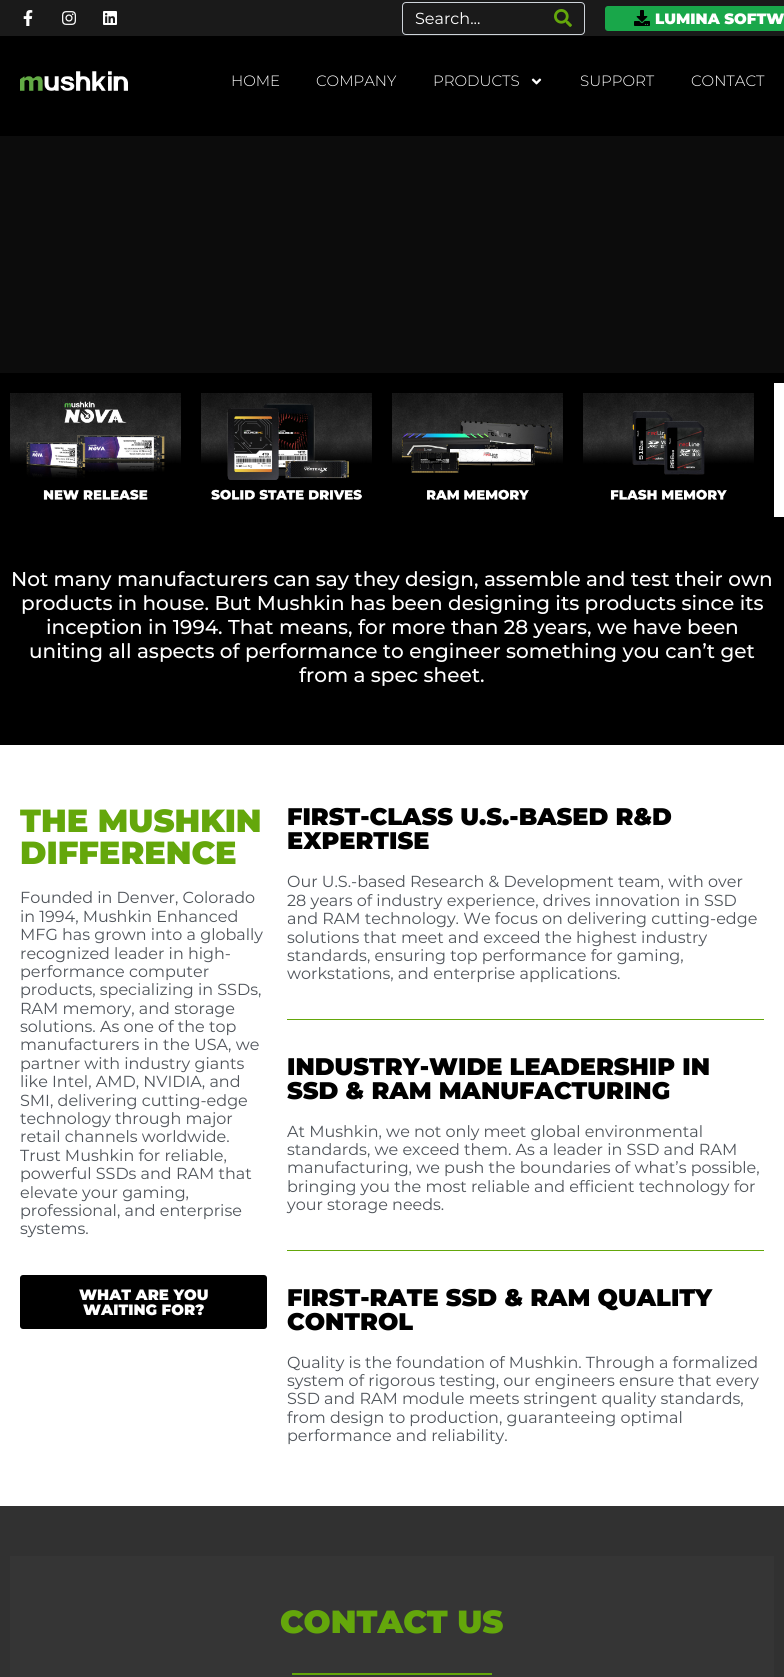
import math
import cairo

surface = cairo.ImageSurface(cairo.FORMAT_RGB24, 784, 1677)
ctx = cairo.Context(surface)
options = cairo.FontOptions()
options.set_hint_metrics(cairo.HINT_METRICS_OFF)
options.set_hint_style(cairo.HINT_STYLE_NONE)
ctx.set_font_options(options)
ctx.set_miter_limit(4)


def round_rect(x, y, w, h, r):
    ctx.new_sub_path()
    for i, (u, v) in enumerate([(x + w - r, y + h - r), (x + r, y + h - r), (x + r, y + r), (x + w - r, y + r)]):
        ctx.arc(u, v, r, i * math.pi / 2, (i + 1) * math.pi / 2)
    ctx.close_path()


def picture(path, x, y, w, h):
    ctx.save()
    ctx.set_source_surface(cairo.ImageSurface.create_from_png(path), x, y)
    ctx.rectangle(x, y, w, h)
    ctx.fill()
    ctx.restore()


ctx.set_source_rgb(1, 1, 1)
ctx.paint()
ctx.set_source_rgb(0.102, 0.102, 0.102)
ctx.rectangle(0, 0, 784, 36)
ctx.fill()
picture("img1.png", 23, 10, 10, 16)
picture("img2.png", 62, 11, 14, 14)
picture("img3.png", 103, 11, 14, 14)
round_rect(402.5, 2.5, 182, 32, 3.5)
ctx.set_source_rgb(0.808, 0.831, 0.855)
ctx.set_line_width(1)
ctx.stroke()
ctx.select_font_face("Montserrat")
ctx.set_font_size(16)
ctx.set_source_rgb(1, 1, 1)
ctx.move_to(415, 24)
ctx.show_text("Search...")
picture("img4.png", 554, 9, 18, 18)
ctx.set_source_rgb(0.098, 0.655, 0.29)
round_rect(605, 6, 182, 25, 3)
ctx.fill()
picture("img5.png", 634, 10, 16, 16)
ctx.select_font_face("Montserrat Black")
ctx.set_font_size(15)
ctx.set_source_rgb(1, 1, 1)
ctx.move_to(655, 24)
ctx.show_text("LUMINA SOFTW")
ctx.set_source_rgb(0, 0, 0)
ctx.rectangle(0, 36, 784, 347)
ctx.fill()
picture("img6.png", 20, 71, 108, 20)
ctx.select_font_face("Montserrat Light")
ctx.set_source_rgb(1, 1, 1)
ctx.move_to(231, 86)
ctx.show_text("HOME")
ctx.move_to(316, 86)
ctx.show_text("COMPANY")
ctx.move_to(433, 86)
ctx.show_text("PRODUCTS")
picture("img7.png", 531, 78, 11, 7)
ctx.move_to(580, 86)
ctx.show_text("SUPPORT")
ctx.move_to(691, 86)
ctx.show_text("CONTACT")
ctx.set_source_rgb(0.047, 0.047, 0.047)
ctx.rectangle(0, 136, 784, 237)
ctx.fill()
ctx.set_source_rgb(0, 0, 0)
ctx.rectangle(0, 383, 774, 134)
ctx.fill()
picture("img8.png", 10, 393, 171, 107)
picture("img9.png", 201, 393, 171, 107)
picture("img10.png", 392, 393, 171, 107)
picture("img11.png", 583, 393, 171, 107)
ctx.rectangle(0, 517, 784, 228)
ctx.fill()
ctx.select_font_face("Montserrat Medium")
ctx.set_font_size(20)
ctx.set_source_rgb(1, 1, 1)
ctx.move_to(11, 586)
ctx.show_text("Not many manufacturers can say they design, assemble and test their own")
ctx.move_to(21, 610)
ctx.show_text("products in house. But Mushkin has been designing its products since its")
ctx.move_to(46, 634)
ctx.show_text("inception in 1994. That means, for more than 28 years, we have been")
ctx.move_to(29, 658)
ctx.show_text("uniting all aspects of performance to engineer something you can’t get")
ctx.move_to(299, 682)
ctx.show_text("from a spec sheet.")
ctx.select_font_face("Montserrat Black")
ctx.set_font_size(32)
ctx.set_source_rgb(0.392, 0.655, 0.043)
ctx.move_to(20, 832)
ctx.show_text("THE MUSHKIN")
ctx.move_to(20, 864)
ctx.show_text("DIFFERENCE")
ctx.select_font_face("Montserrat")
ctx.set_font_size(16)
ctx.set_source_rgb(0.31, 0.329, 0.353)
ctx.move_to(20, 903)
ctx.show_text("Founded in Denver, Colorado")
ctx.move_to(20, 922)
ctx.show_text("in 1994, Mushkin Enhanced")
ctx.move_to(20, 940)
ctx.show_text("MFG has grown into a globally")
ctx.move_to(20, 959)
ctx.show_text("recognized leader in high-")
ctx.move_to(20, 977)
ctx.show_text("performance computer")
ctx.move_to(20, 995)
ctx.show_text("products, specializing in SSDs,")
ctx.move_to(20, 1014)
ctx.show_text("RAM memory, and storage")
ctx.move_to(20, 1032)
ctx.show_text("solutions. As one of the top")
ctx.move_to(20, 1050)
ctx.show_text("manufacturers in the USA, we")
ctx.move_to(20, 1069)
ctx.show_text("partner with industry giants")
ctx.move_to(20, 1087)
ctx.show_text("like Intel, AMD, NVIDIA, and")
ctx.move_to(20, 1106)
ctx.show_text("SMI, delivering cutting-edge")
ctx.move_to(20, 1124)
ctx.show_text("technology through major")
ctx.move_to(20, 1142)
ctx.show_text("retail channels worldwide.")
ctx.move_to(20, 1161)
ctx.show_text("Trust Mushkin for reliable,")
ctx.move_to(20, 1179)
ctx.show_text("powerful SSDs and RAM that")
ctx.move_to(20, 1198)
ctx.show_text("elevate your gaming,")
ctx.move_to(20, 1216)
ctx.show_text("professional, and enterprise")
ctx.move_to(20, 1234)
ctx.show_text("systems.")
ctx.set_source_rgb(0, 0, 0)
round_rect(20, 1275, 247, 54, 3)
ctx.fill()
ctx.select_font_face("Montserrat Black")
ctx.set_font_size(15)
ctx.set_source_rgb(1, 1, 1)
ctx.move_to(79, 1300)
ctx.show_text("WHAT ARE YOU")
ctx.move_to(83, 1315)
ctx.show_text("WAITING FOR?")
ctx.set_font_size(24)
ctx.set_source_rgb(0, 0, 0)
ctx.move_to(287, 825)
ctx.show_text("FIRST-CLASS U.S.-BASED R&D")
ctx.move_to(287, 849)
ctx.show_text("EXPERTISE")
ctx.select_font_face("Montserrat")
ctx.set_font_size(16)
ctx.set_source_rgb(0.31, 0.329, 0.353)
ctx.move_to(287, 887)
ctx.show_text("Our U.S.-based Research & Development team, with over")
ctx.move_to(287, 906)
ctx.show_text("28 years of industry experience, drives innovation in SSD")
ctx.move_to(287, 924)
ctx.show_text("and RAM technology. We focus on delivering cutting-edge")
ctx.move_to(287, 943)
ctx.show_text("solutions that meet and exceed the highest industry")
ctx.move_to(287, 961)
ctx.show_text("standards, ensuring top performance for gaming,")
ctx.move_to(287, 979)
ctx.show_text("workstations, and enterprise applications.")
ctx.set_source_rgb(0.392, 0.655, 0.043)
ctx.rectangle(287, 1019, 477, 1)
ctx.fill()
ctx.select_font_face("Montserrat Black")
ctx.set_font_size(24)
ctx.set_source_rgb(0, 0, 0)
ctx.move_to(287, 1075)
ctx.show_text("INDUSTRY-WIDE LEADERSHIP IN")
ctx.move_to(287, 1099)
ctx.show_text("SSD & RAM MANUFACTURING")
ctx.select_font_face("Montserrat")
ctx.set_font_size(16)
ctx.set_source_rgb(0.31, 0.329, 0.353)
ctx.move_to(287, 1137)
ctx.show_text("At Mushkin, we not only meet global environmental")
ctx.move_to(287, 1155)
ctx.show_text("standards, we exceed them. As a leader in SSD and RAM")
ctx.move_to(287, 1173)
ctx.show_text("manufacturing, we push the boundaries of what’s possible,")
ctx.move_to(287, 1192)
ctx.show_text("bringing you the most reliable and efficient technology for")
ctx.move_to(287, 1210)
ctx.show_text("your storage needs.")
ctx.set_source_rgb(0.392, 0.655, 0.043)
ctx.rectangle(287, 1250, 477, 1)
ctx.fill()
ctx.select_font_face("Montserrat Black")
ctx.set_font_size(24)
ctx.set_source_rgb(0, 0, 0)
ctx.move_to(287, 1306)
ctx.show_text("FIRST-RATE SSD & RAM QUALITY")
ctx.move_to(287, 1330)
ctx.show_text("CONTROL")
ctx.select_font_face("Montserrat")
ctx.set_font_size(16)
ctx.set_source_rgb(0.31, 0.329, 0.353)
ctx.move_to(287, 1368)
ctx.show_text("Quality is the foundation of Mushkin. Through a formalized")
ctx.move_to(287, 1386)
ctx.show_text("system of rigorous testing, our engineers ensure that every")
ctx.move_to(287, 1404)
ctx.show_text("SSD and RAM module meets stringent quality standards,")
ctx.move_to(287, 1423)
ctx.show_text("from design to production, guaranteeing optimal")
ctx.move_to(287, 1441)
ctx.show_text("performance and reliability.")
ctx.set_source_rgb(0.192, 0.192, 0.192)
ctx.rectangle(0, 1506, 784, 171)
ctx.fill()
ctx.set_source_rgb(0.208, 0.208, 0.208)
ctx.rectangle(10, 1556, 764, 121)
ctx.fill()
ctx.select_font_face("Montserrat Black")
ctx.set_font_size(32)
ctx.set_source_rgb(0.392, 0.655, 0.043)
ctx.move_to(280, 1633)
ctx.show_text("CONTACT US")
ctx.rectangle(292, 1673, 200, 2)
ctx.fill()
surface.write_to_png("page.png")
